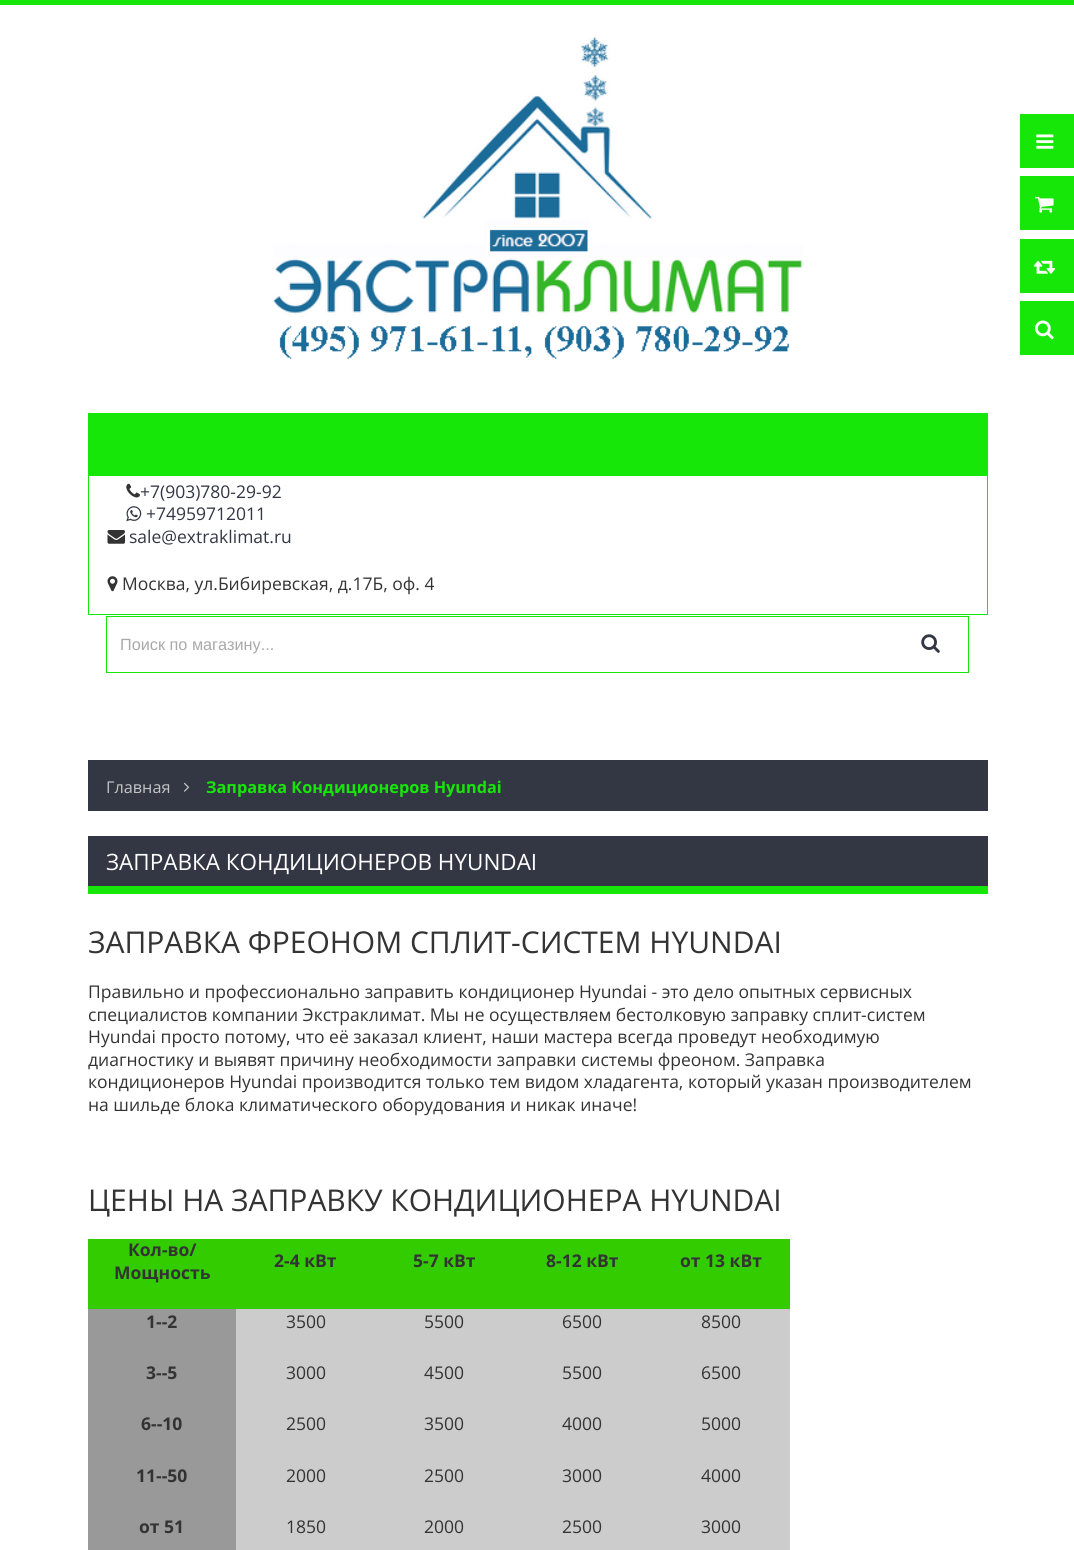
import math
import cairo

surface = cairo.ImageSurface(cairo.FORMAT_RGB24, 1074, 1550)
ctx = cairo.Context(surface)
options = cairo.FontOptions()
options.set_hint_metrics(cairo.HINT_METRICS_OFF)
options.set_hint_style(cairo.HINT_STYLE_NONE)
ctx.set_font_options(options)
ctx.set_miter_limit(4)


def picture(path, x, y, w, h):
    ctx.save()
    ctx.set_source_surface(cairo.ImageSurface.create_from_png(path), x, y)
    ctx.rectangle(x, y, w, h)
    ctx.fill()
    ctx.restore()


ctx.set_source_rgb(1, 1, 1)
ctx.paint()
ctx.set_source_rgb(0.09, 0.906, 0.035)
ctx.rectangle(0, 0, 1074, 5)
ctx.fill()
ctx.rectangle(1020, 114, 54, 54)
ctx.fill()
picture("img1.png", 1036, 134, 18, 15)
ctx.rectangle(1020, 176, 54, 54)
ctx.fill()
picture("img2.png", 1035, 196, 19, 17)
ctx.rectangle(1020, 239, 54, 54)
ctx.fill()
picture("img3.png", 1033, 260, 23, 14)
ctx.rectangle(1020, 301, 54, 54)
ctx.fill()
picture("img4.png", 1035, 320, 19, 20)
picture("img5.png", 273, 37, 530, 322)
ctx.rectangle(88.5, 413.5, 899, 201)
ctx.set_line_width(1)
ctx.stroke()
ctx.rectangle(89, 414, 898, 59)
ctx.fill()
ctx.rectangle(88, 473, 900, 3)
ctx.fill()
picture("img6.png", 126, 483, 14, 15)
ctx.select_font_face("Open Sans")
ctx.set_font_size(17.5)
ctx.set_source_rgb(0.2, 0.216, 0.267)
ctx.move_to(140, 498)
ctx.show_text("+7(903)780-29-92")
picture("img7.png", 126, 506, 16, 16)
ctx.move_to(146, 520)
ctx.show_text("+74959712011")
picture("img8.png", 107, 530, 18, 14)
ctx.move_to(129, 543)
ctx.show_text("sale@extraklimat.ru")
picture("img9.png", 107, 576, 11, 16)
ctx.set_source_rgb(0.2, 0.2, 0.2)
ctx.move_to(122, 590)
ctx.show_text("Москва, ул.Бибиревская, д.17Б, оф. 4")
ctx.rectangle(106.5, 616.5, 862, 56)
ctx.set_source_rgb(0.09, 0.906, 0.035)
ctx.stroke()
ctx.select_font_face("Liberation Sans")
ctx.set_font_size(16.25)
ctx.set_source_rgb(0.663, 0.663, 0.663)
ctx.move_to(120, 650)
ctx.show_text("Поиск по магазину...")
picture("img10.png", 921, 634, 19, 19)
ctx.set_source_rgb(0.2, 0.216, 0.267)
ctx.rectangle(88, 760, 900, 51)
ctx.fill()
ctx.select_font_face("Open Sans")
ctx.set_source_rgb(0.773, 0.773, 0.773)
ctx.move_to(106, 793)
ctx.show_text("Главная")
picture("img11.png", 183, 782, 7, 10)
ctx.select_font_face("Open Sans", cairo.FONT_SLANT_NORMAL, cairo.FONT_WEIGHT_BOLD)
ctx.set_source_rgb(0.09, 0.906, 0.035)
ctx.move_to(206, 793)
ctx.show_text("Заправка Кондиционеров Hyundai")
ctx.set_source_rgb(0.2, 0.216, 0.267)
ctx.rectangle(88, 836, 900, 50)
ctx.fill()
ctx.set_source_rgb(0.09, 0.906, 0.035)
ctx.rectangle(88, 886, 900, 8)
ctx.fill()
ctx.select_font_face("Open Sans")
ctx.set_font_size(22.5)
ctx.set_source_rgb(1, 1, 1)
ctx.move_to(106, 870)
ctx.show_text("ЗАПРАВКА КОНДИЦИОНЕРОВ HYUNDAI")
ctx.set_font_size(30)
ctx.set_source_rgb(0.2, 0.2, 0.2)
ctx.move_to(88, 953)
ctx.show_text("ЗАПРАВКА ФРЕОНОМ СПЛИТ-СИСТЕМ HYUNDAI")
ctx.set_font_size(17.5)
ctx.move_to(88, 998)
ctx.show_text("Правильно и профессионально заправить кондиционер Hyundai - это дело опытных сервисных")
ctx.move_to(88, 1021)
ctx.show_text("специалистов компании Экстраклимат. Мы не осуществляем бестолковую заправку сплит-систем")
ctx.move_to(88, 1043)
ctx.show_text("Hyundai просто потому, что её заказал клиент, наши мастера всегда проведут необходимую")
ctx.move_to(88, 1066)
ctx.show_text("диагностику и выявят причину необходимости заправки системы фреоном. Заправка")
ctx.move_to(88, 1088)
ctx.show_text("кондиционеров Hyundai производится только тем видом хладагента, который указан производителем")
ctx.move_to(88, 1111)
ctx.show_text("на шильде блока климатического оборудования и никак иначе!")
ctx.set_font_size(30)
ctx.move_to(88, 1211)
ctx.show_text("ЦЕНЫ НА ЗАПРАВКУ КОНДИЦИОНЕРА HYUNDAI")
ctx.set_source_rgb(0.2, 0.8, 0)
ctx.rectangle(88, 1239, 702, 70)
ctx.fill()
ctx.select_font_face("Open Sans", cairo.FONT_SLANT_NORMAL, cairo.FONT_WEIGHT_BOLD)
ctx.set_font_size(17.5)
ctx.set_source_rgb(0.2, 0.2, 0.2)
ctx.move_to(128, 1256)
ctx.show_text("Кол-во/")
ctx.move_to(114, 1279)
ctx.show_text("Мощность")
ctx.move_to(274, 1267)
ctx.show_text("2-4 кВт")
ctx.move_to(413, 1267)
ctx.show_text("5-7 кВт")
ctx.move_to(546, 1267)
ctx.show_text("8-12 кВт")
ctx.move_to(680, 1267)
ctx.show_text("от 13 кВт")
ctx.set_source_rgb(0.6, 0.6, 0.6)
ctx.rectangle(88, 1309, 148, 241)
ctx.fill()
ctx.set_source_rgb(0.2, 0.2, 0.2)
ctx.move_to(146, 1328)
ctx.show_text("1--2")
ctx.set_source_rgb(0.8, 0.8, 0.8)
ctx.rectangle(236, 1309, 554, 51)
ctx.fill()
ctx.select_font_face("Open Sans")
ctx.set_source_rgb(0.2, 0.2, 0.2)
ctx.move_to(286, 1328)
ctx.show_text("3500")
ctx.move_to(424, 1328)
ctx.show_text("5500")
ctx.move_to(562, 1328)
ctx.show_text("6500")
ctx.move_to(701, 1328)
ctx.show_text("8500")
ctx.select_font_face("Open Sans", cairo.FONT_SLANT_NORMAL, cairo.FONT_WEIGHT_BOLD)
ctx.move_to(146, 1379)
ctx.show_text("3--5")
ctx.set_source_rgb(0.8, 0.8, 0.8)
ctx.rectangle(236, 1360, 554, 51)
ctx.fill()
ctx.select_font_face("Open Sans")
ctx.set_source_rgb(0.2, 0.2, 0.2)
ctx.move_to(286, 1379)
ctx.show_text("3000")
ctx.move_to(424, 1379)
ctx.show_text("4500")
ctx.move_to(562, 1379)
ctx.show_text("5500")
ctx.move_to(701, 1379)
ctx.show_text("6500")
ctx.select_font_face("Open Sans", cairo.FONT_SLANT_NORMAL, cairo.FONT_WEIGHT_BOLD)
ctx.move_to(141, 1430)
ctx.show_text("6--10")
ctx.set_source_rgb(0.8, 0.8, 0.8)
ctx.rectangle(236, 1411, 554, 52)
ctx.fill()
ctx.select_font_face("Open Sans")
ctx.set_source_rgb(0.2, 0.2, 0.2)
ctx.move_to(286, 1430)
ctx.show_text("2500")
ctx.move_to(424, 1430)
ctx.show_text("3500")
ctx.move_to(562, 1430)
ctx.show_text("4000")
ctx.move_to(701, 1430)
ctx.show_text("5000")
ctx.select_font_face("Open Sans", cairo.FONT_SLANT_NORMAL, cairo.FONT_WEIGHT_BOLD)
ctx.move_to(136, 1482)
ctx.show_text("11--50")
ctx.set_source_rgb(0.8, 0.8, 0.8)
ctx.rectangle(236, 1463, 554, 51)
ctx.fill()
ctx.select_font_face("Open Sans")
ctx.set_source_rgb(0.2, 0.2, 0.2)
ctx.move_to(286, 1482)
ctx.show_text("2000")
ctx.move_to(424, 1482)
ctx.show_text("2500")
ctx.move_to(562, 1482)
ctx.show_text("3000")
ctx.move_to(701, 1482)
ctx.show_text("4000")
ctx.select_font_face("Open Sans", cairo.FONT_SLANT_NORMAL, cairo.FONT_WEIGHT_BOLD)
ctx.move_to(139, 1533)
ctx.show_text("от 51")
ctx.set_source_rgb(0.8, 0.8, 0.8)
ctx.rectangle(236, 1514, 554, 36)
ctx.fill()
ctx.select_font_face("Open Sans")
ctx.set_source_rgb(0.2, 0.2, 0.2)
ctx.move_to(286, 1533)
ctx.show_text("1850")
ctx.move_to(424, 1533)
ctx.show_text("2000")
ctx.move_to(562, 1533)
ctx.show_text("2500")
ctx.move_to(701, 1533)
ctx.show_text("3000")
surface.write_to_png("page.png")
